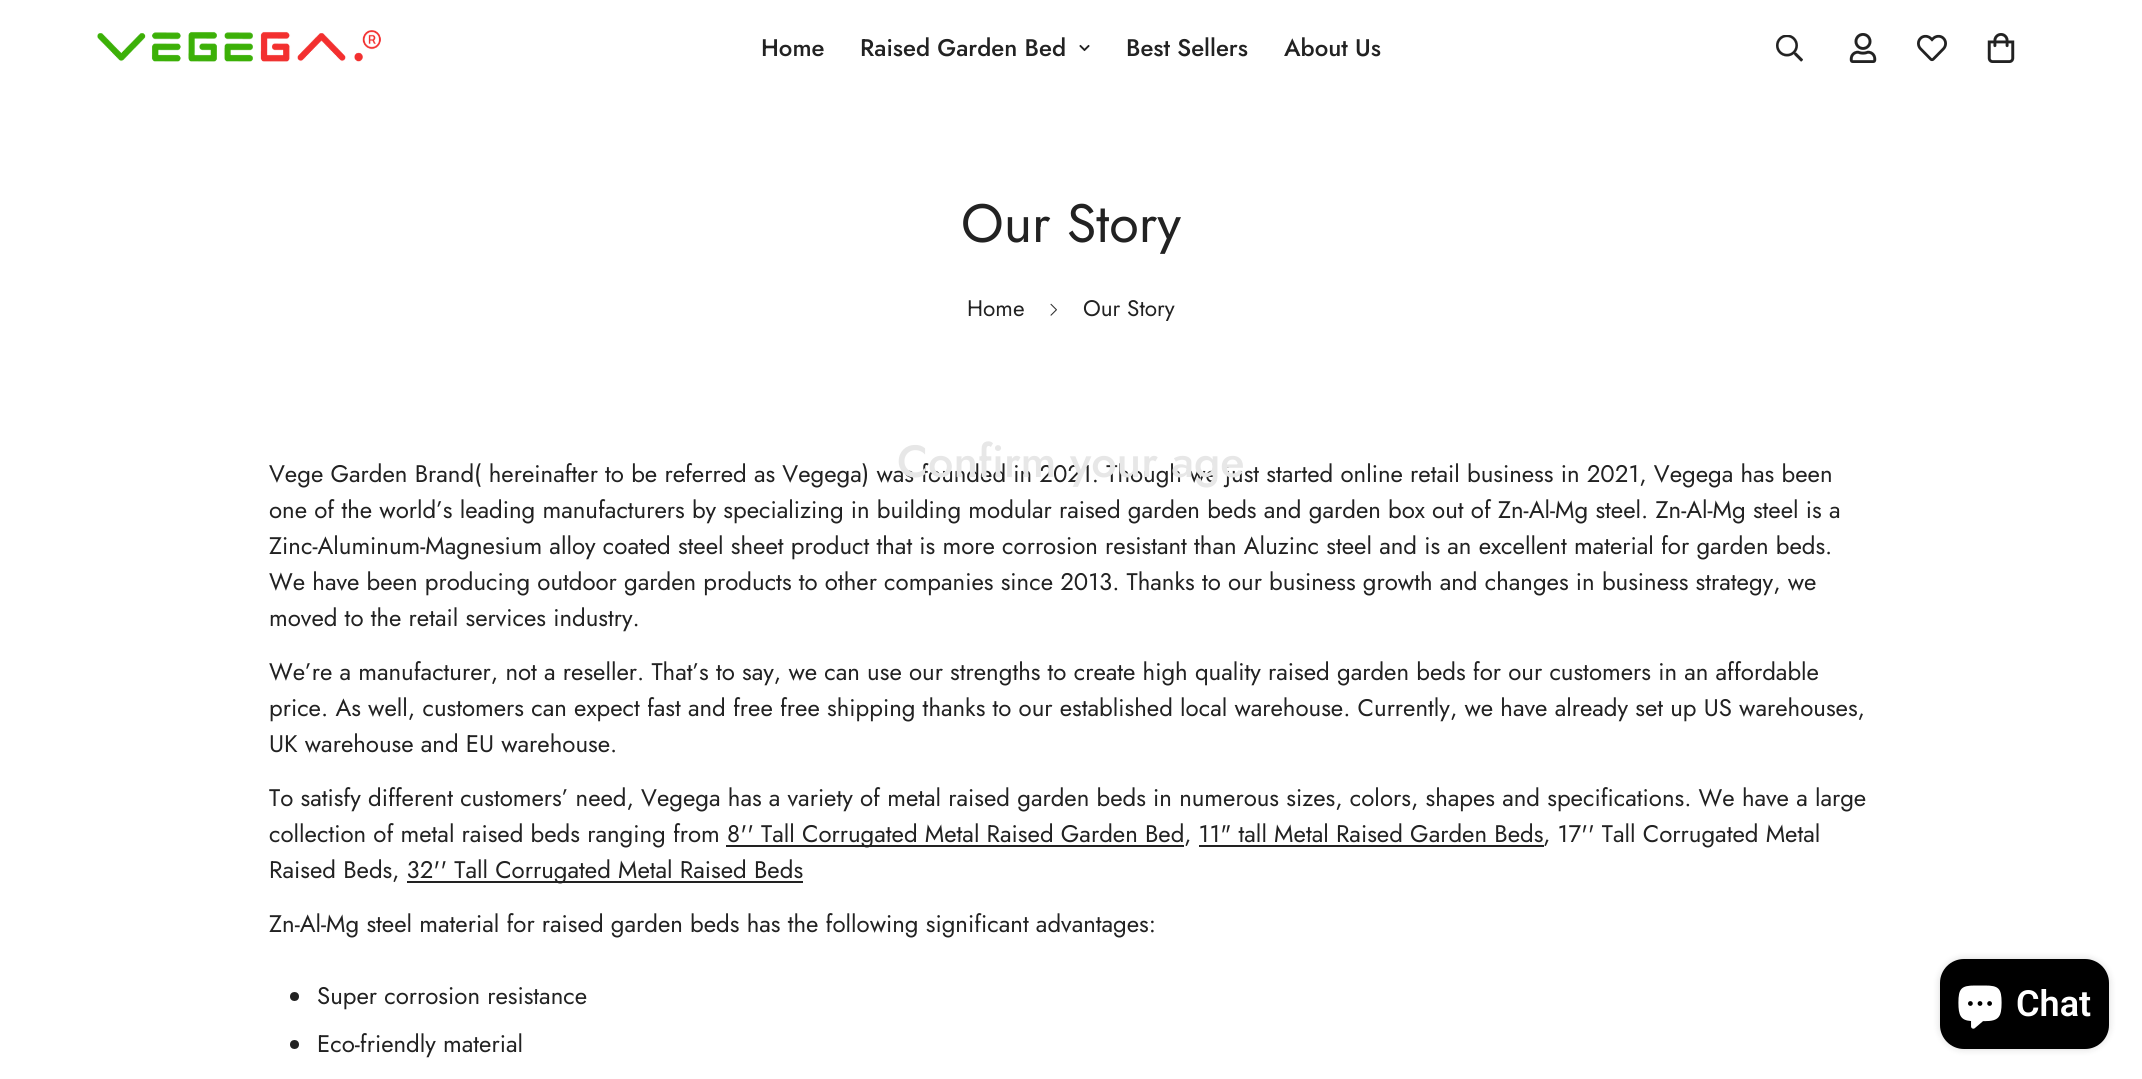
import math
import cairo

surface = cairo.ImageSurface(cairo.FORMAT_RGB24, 2142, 1079)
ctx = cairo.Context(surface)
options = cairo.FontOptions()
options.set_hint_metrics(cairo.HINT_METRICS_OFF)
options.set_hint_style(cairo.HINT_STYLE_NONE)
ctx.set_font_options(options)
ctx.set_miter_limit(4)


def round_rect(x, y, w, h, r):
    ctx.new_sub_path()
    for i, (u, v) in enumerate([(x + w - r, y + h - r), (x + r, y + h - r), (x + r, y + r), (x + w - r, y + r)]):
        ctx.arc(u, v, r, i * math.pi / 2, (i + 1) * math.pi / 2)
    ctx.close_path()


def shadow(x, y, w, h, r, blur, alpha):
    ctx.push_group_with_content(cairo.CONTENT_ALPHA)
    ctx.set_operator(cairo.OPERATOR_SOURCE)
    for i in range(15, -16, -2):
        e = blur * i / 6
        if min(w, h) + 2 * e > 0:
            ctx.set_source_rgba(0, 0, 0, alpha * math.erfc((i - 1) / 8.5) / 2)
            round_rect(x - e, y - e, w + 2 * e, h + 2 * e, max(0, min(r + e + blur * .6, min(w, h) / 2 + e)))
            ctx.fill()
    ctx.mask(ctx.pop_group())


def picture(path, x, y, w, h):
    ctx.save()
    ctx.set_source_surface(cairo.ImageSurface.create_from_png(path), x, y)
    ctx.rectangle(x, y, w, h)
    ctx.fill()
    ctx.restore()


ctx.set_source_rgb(1, 1, 1)
ctx.paint()
picture("img1.png", 97, 30, 284, 32)
ctx.select_font_face("Jost Medium")
ctx.set_font_size(24)
ctx.set_source_rgb(0.133, 0.133, 0.133)
ctx.move_to(761, 56)
ctx.show_text("Home")
ctx.move_to(860, 56)
ctx.show_text("Raised Garden Bed")
picture("img2.png", 1079, 44, 11, 8)
ctx.move_to(1126, 56)
ctx.show_text("Best Sellers")
ctx.move_to(1284, 56)
ctx.show_text("About Us")
picture("img3.png", 1776, 35, 27, 27)
picture("img4.png", 1849, 33, 28, 30)
picture("img5.png", 1917, 34, 30, 28)
picture("img6.png", 1987, 33, 28, 30)
ctx.select_font_face("Jost")
ctx.set_font_size(54)
ctx.move_to(961, 242)
ctx.show_text("Our Story")
ctx.set_font_size(22.5)
ctx.move_to(967, 316)
ctx.show_text("Home")
picture("img7.png", 1050, 303, 7, 13)
ctx.move_to(1083, 316)
ctx.show_text("Our Story")
ctx.set_font_size(24)
ctx.move_to(269, 482)
ctx.show_text("Vege Garden Brand( hereinafter to be referred as Vegega) was founded in 2021. Though we just started online retail business in 2021, Vegega has been")
ctx.move_to(269, 518)
ctx.show_text("one of the world’s leading manufacturers by specializing in building modular raised garden beds and garden box out of Zn-Al-Mg steel. Zn-Al-Mg steel is a")
ctx.move_to(269, 554)
ctx.show_text("Zinc-Aluminum-Magnesium alloy coated steel sheet product that is more corrosion resistant than Aluzinc steel and is an excellent material for garden beds.")
ctx.move_to(269, 590)
ctx.show_text("We have been producing outdoor garden products to other companies since 2013. Thanks to our business growth and changes in business strategy, we")
ctx.move_to(269, 626)
ctx.show_text("moved to the retail services industry.")
ctx.move_to(269, 680)
ctx.show_text("We’re a manufacturer, not a reseller. That’s to say, we can use our strengths to create high quality raised garden beds for our customers in an affordable")
ctx.move_to(269, 716)
ctx.show_text("price. As well, customers can expect fast and free free shipping thanks to our established local warehouse. Currently, we have already set up US warehouses,")
ctx.move_to(269, 752)
ctx.show_text("UK warehouse and EU warehouse.")
ctx.move_to(269, 806)
ctx.show_text("To satisfy different customers’ need, Vegega has a variety of metal raised garden beds in numerous sizes, colors, shapes and specifications. We have a large")
ctx.move_to(269, 842)
ctx.show_text("collection of metal raised beds ranging from 8'' Tall Corrugated Metal Raised Garden Bed")
ctx.move_to(1184, 842)
ctx.show_text(", 11\" tall Metal Raised Garden Beds")
ctx.move_to(1543, 842)
ctx.show_text(", 17'' Tall Corrugated Metal")
ctx.rectangle(726, 845, 458, 2)
ctx.fill()
ctx.rectangle(1199, 845, 345, 2)
ctx.fill()
ctx.move_to(269, 878)
ctx.show_text("Raised Beds")
ctx.move_to(392, 878)
ctx.show_text(", 32'' Tall Corrugated Metal Raised Beds")
ctx.rectangle(407, 881, 396, 2)
ctx.fill()
ctx.move_to(269, 932)
ctx.show_text("Zn-Al-Mg steel material for raised garden beds has the following significant advantages:")
ctx.new_path()
ctx.arc(294.5, 996.5, 4.5, 0, 2 * math.pi)
ctx.fill()
ctx.move_to(317, 1004)
ctx.show_text("Super corrosion resistance")
ctx.new_path()
ctx.arc(294.5, 1044.5, 4.5, 0, 2 * math.pi)
ctx.fill()
ctx.move_to(317, 1052)
ctx.show_text("Eco-friendly material")
ctx.select_font_face("Jost Medium")
ctx.set_font_size(45)
ctx.set_source_rgb(0.906, 0.906, 0.906)
ctx.move_to(897, 477)
ctx.show_text("Confirm your age")
ctx.set_source_rgb(0, 0, 0)
shadow(1940, 959, 169, 90, 24, 4, 0.15)
ctx.set_source_rgb(0, 0, 0)
round_rect(1940, 959, 169, 90, 24)
ctx.fill()
picture("img8.png", 1958, 985, 44, 44)
ctx.select_font_face("Roboto SemiBold")
ctx.set_font_size(36)
ctx.set_source_rgb(1, 1, 1)
ctx.move_to(2016, 1016)
ctx.show_text("Chat")
surface.write_to_png("page.png")
